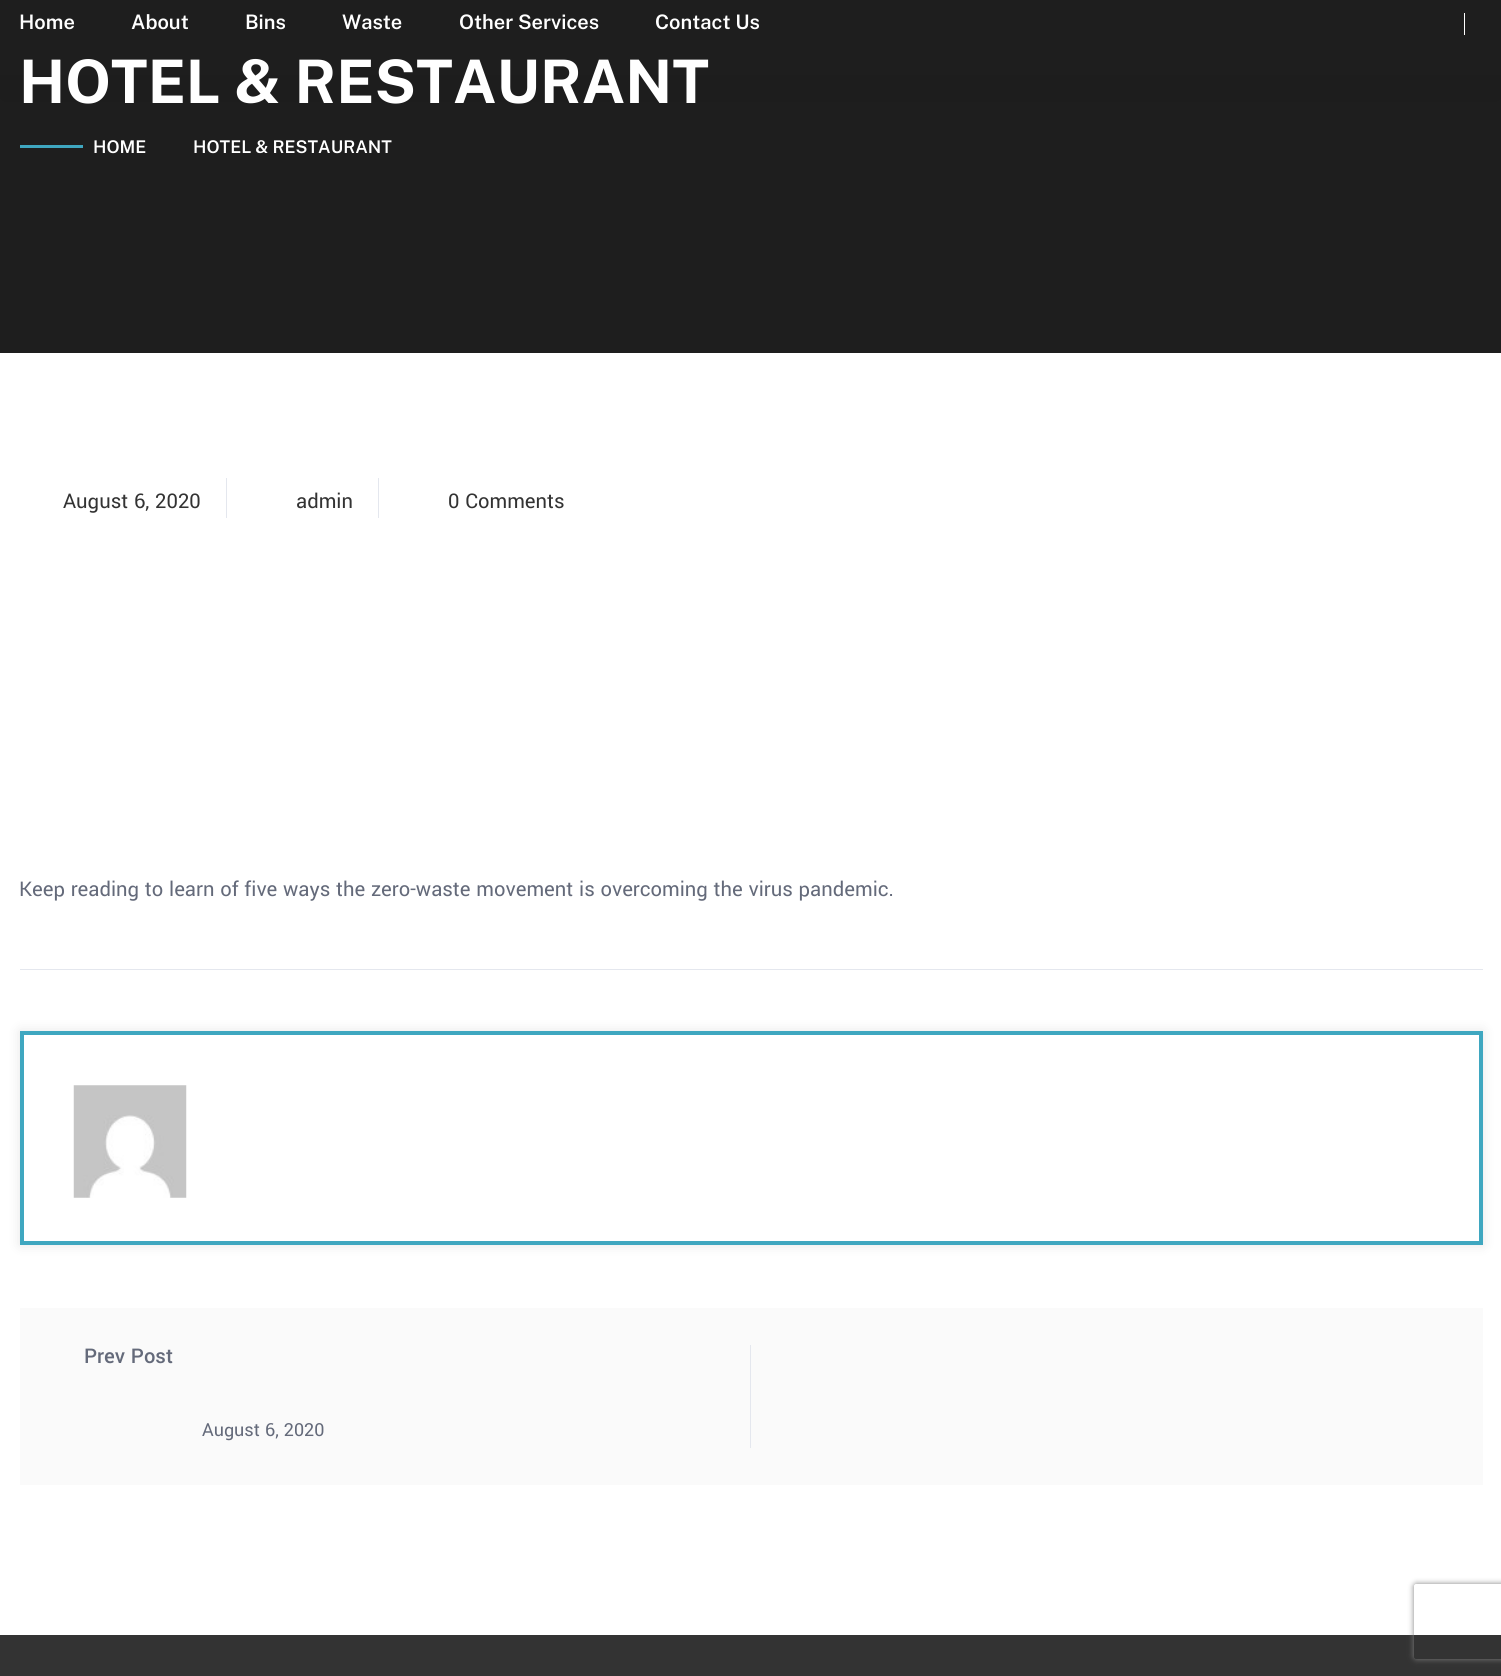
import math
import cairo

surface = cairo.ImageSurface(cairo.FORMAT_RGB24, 1501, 1676)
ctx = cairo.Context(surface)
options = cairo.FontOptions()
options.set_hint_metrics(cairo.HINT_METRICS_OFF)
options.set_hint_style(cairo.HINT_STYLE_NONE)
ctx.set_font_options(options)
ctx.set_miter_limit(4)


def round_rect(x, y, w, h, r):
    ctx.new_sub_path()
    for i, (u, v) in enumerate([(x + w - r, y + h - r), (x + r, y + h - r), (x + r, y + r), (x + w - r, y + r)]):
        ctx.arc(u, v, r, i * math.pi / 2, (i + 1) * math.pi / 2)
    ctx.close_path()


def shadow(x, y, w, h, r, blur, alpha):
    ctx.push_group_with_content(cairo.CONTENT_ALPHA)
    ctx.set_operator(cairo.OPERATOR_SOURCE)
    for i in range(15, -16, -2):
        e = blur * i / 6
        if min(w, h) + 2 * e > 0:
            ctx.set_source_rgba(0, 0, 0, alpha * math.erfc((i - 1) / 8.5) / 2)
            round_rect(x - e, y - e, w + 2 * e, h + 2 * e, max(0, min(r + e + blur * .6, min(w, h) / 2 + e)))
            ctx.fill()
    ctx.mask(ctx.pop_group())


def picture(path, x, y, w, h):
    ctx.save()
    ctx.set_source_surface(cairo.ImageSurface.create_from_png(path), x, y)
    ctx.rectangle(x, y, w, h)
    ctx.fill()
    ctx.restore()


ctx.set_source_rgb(1, 1, 1)
ctx.paint()
ctx.set_source_rgb(0.118, 0.118, 0.118)
ctx.rectangle(0, 0, 1501, 353)
ctx.fill()
ctx.save()
ctx.rectangle(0, 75, 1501, 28)
ctx.clip()
ctx.set_source_rgb(0, 0, 0)
shadow(0, 1, 1501, 99, 0, 12.5, 0.05)
ctx.restore()
ctx.select_font_face("Public Sans SemiBold")
ctx.set_font_size(20)
ctx.set_source_rgb(1, 1, 1)
ctx.move_to(19, 29)
ctx.show_text("Home")
ctx.move_to(131, 29)
ctx.show_text("About")
ctx.move_to(245, 29)
ctx.show_text("Bins")
ctx.move_to(342, 29)
ctx.show_text("Waste")
ctx.move_to(459, 29)
ctx.show_text("Other Services")
ctx.move_to(655, 29)
ctx.show_text("Contact Us")
ctx.rectangle(1464, 13, 1, 22)
ctx.fill()
ctx.select_font_face("Public Sans", cairo.FONT_SLANT_NORMAL, cairo.FONT_WEIGHT_BOLD)
ctx.set_font_size(60)
ctx.move_to(19, 103)
ctx.show_text("HOTEL & RESTAURANT")
ctx.set_source_rgb(0.247, 0.655, 0.753)
ctx.rectangle(20, 145, 63, 3)
ctx.fill()
ctx.select_font_face("Public Sans SemiBold")
ctx.set_font_size(17.5)
ctx.set_source_rgb(1, 1, 1)
ctx.move_to(93, 153)
ctx.show_text("HOME")
ctx.move_to(193, 153)
ctx.show_text("HOTEL & RESTAURANT")
ctx.set_source_rgb(0.894, 0.906, 0.933)
ctx.rectangle(226, 478, 1, 40)
ctx.fill()
ctx.select_font_face("Yantramanav")
ctx.set_font_size(22.5)
ctx.set_source_rgb(0.2, 0.2, 0.2)
ctx.move_to(63, 508)
ctx.show_text("August 6, 2020")
ctx.set_source_rgb(0.894, 0.906, 0.933)
ctx.rectangle(378, 478, 1, 40)
ctx.fill()
ctx.set_source_rgb(0.2, 0.2, 0.2)
ctx.move_to(296, 508)
ctx.show_text("admin")
ctx.move_to(448, 508)
ctx.show_text("0 Comments")
ctx.set_source_rgb(0.392, 0.416, 0.478)
ctx.move_to(19, 896)
ctx.show_text("Keep reading to learn of five ways the zero-waste movement is overcoming the virus pandemic.")
ctx.set_source_rgb(0.894, 0.906, 0.933)
ctx.rectangle(20, 969, 1463, 1)
ctx.fill()
ctx.save()
ctx.set_fill_rule(cairo.FILL_RULE_EVEN_ODD)
ctx.new_path()
ctx.move_to(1, 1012)
ctx.line_to(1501, 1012)
ctx.line_to(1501, 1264)
ctx.line_to(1, 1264)
ctx.close_path()
ctx.move_to(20, 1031)
ctx.line_to(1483, 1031)
ctx.line_to(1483, 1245)
ctx.line_to(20, 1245)
ctx.close_path()
ctx.clip()
ctx.set_source_rgb(0, 0, 0)
shadow(20, 1031, 1463, 214, 0, 6, 0.1)
ctx.restore()
ctx.rectangle(22, 1033, 1459, 210)
ctx.set_source_rgb(0.247, 0.655, 0.753)
ctx.set_line_width(4)
ctx.stroke()
picture("img1.png", 73, 1085, 114, 113)
ctx.set_source_rgb(0.98, 0.98, 0.98)
ctx.rectangle(20, 1308, 1463, 177)
ctx.fill()
ctx.set_source_rgb(0.894, 0.906, 0.933)
ctx.rectangle(750, 1345, 1, 103)
ctx.fill()
ctx.select_font_face("Yantramanav Medium")
ctx.set_source_rgb(0.392, 0.416, 0.478)
ctx.move_to(84, 1363)
ctx.show_text("Prev Post")
ctx.select_font_face("Yantramanav")
ctx.set_font_size(20)
ctx.move_to(202, 1436)
ctx.show_text("August 6, 2020")
ctx.set_source_rgb(0.2, 0.2, 0.2)
ctx.rectangle(0, 1635, 1501, 41)
ctx.fill()
ctx.save()
ctx.set_fill_rule(cairo.FILL_RULE_EVEN_ODD)
ctx.new_path()
ctx.move_to(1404, 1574)
ctx.line_to(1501, 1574)
ctx.line_to(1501, 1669)
ctx.line_to(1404, 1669)
ctx.close_path()
ctx.move_to(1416.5, 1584)
ctx.line_to(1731.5, 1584)
ctx.curve_to(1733, 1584, 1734, 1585, 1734, 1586.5)
ctx.line_to(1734, 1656.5)
ctx.curve_to(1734, 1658, 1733, 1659, 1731.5, 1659)
ctx.line_to(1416.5, 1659)
ctx.curve_to(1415, 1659, 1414, 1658, 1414, 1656.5)
ctx.line_to(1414, 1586.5)
ctx.curve_to(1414, 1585, 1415, 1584, 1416.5, 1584)
ctx.close_path()
ctx.clip()
ctx.set_source_rgb(0.502, 0.502, 0.502)
shadow(1414, 1584, 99, 75, 2.5, 3, 1)
ctx.restore()
surface.write_to_png("page.png")
